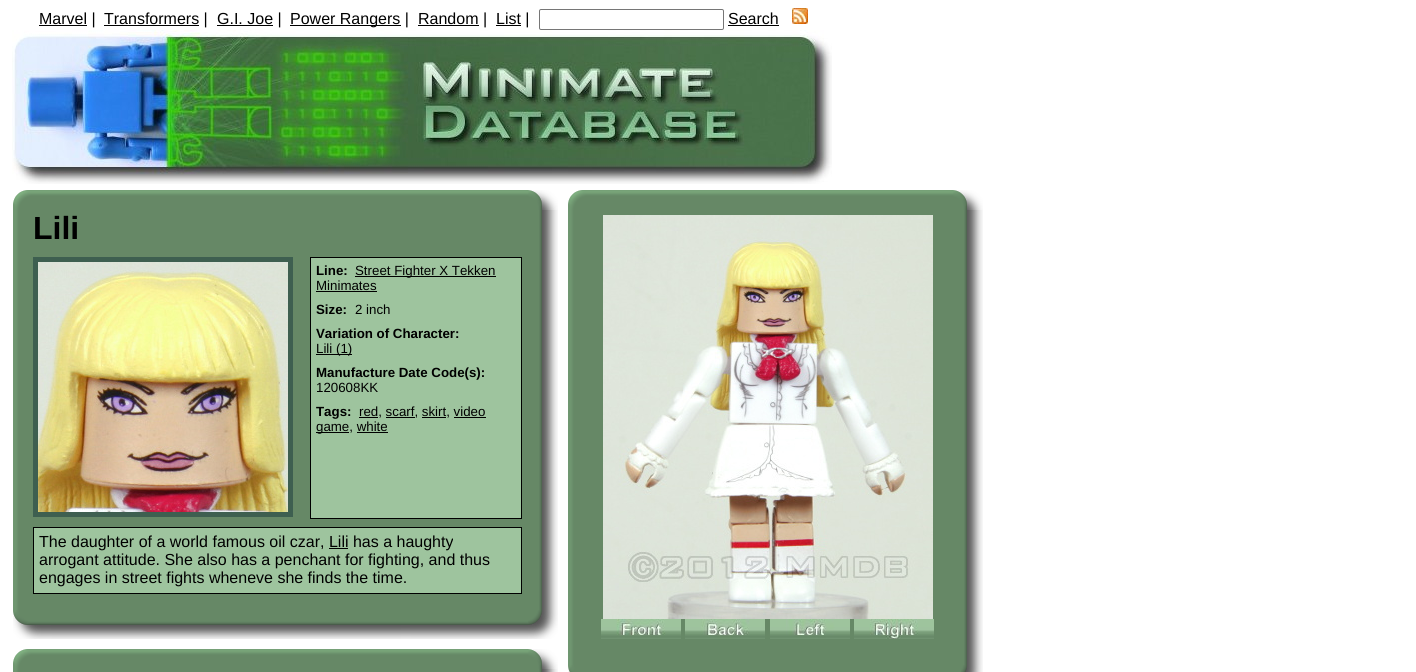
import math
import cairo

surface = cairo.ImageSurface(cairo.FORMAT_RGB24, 1416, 672)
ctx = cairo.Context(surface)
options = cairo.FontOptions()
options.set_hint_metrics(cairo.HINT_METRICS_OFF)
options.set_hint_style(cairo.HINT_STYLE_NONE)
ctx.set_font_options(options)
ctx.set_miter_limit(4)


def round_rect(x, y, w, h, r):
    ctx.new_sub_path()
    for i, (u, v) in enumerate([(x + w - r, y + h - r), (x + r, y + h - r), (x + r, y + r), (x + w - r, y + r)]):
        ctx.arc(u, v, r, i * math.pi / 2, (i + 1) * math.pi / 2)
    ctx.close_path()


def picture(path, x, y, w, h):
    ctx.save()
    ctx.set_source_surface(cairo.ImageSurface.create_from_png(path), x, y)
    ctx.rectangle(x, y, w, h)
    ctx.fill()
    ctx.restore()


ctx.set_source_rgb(1, 1, 1)
ctx.paint()
ctx.set_source_rgb(0, 0, 0)
ctx.rectangle(39, 25, 48, 1)
ctx.fill()
ctx.select_font_face("Liberation Sans")
ctx.set_font_size(16)
ctx.move_to(39, 24)
ctx.show_text("Marvel |")
ctx.rectangle(104, 25, 95, 1)
ctx.fill()
ctx.move_to(104, 24)
ctx.show_text("Transformers |")
ctx.rectangle(217, 25, 56, 1)
ctx.fill()
ctx.move_to(217, 24)
ctx.show_text("G.I. Joe |")
ctx.rectangle(290, 25, 111, 1)
ctx.fill()
ctx.move_to(290, 24)
ctx.show_text("Power Rangers |")
ctx.rectangle(418, 25, 61, 1)
ctx.fill()
ctx.move_to(418, 24)
ctx.show_text("Random |")
ctx.rectangle(496, 25, 25, 1)
ctx.fill()
ctx.move_to(496, 24)
ctx.show_text("List |")
round_rect(539.5, 9.5, 184, 20, 1.5)
ctx.set_source_rgb(0.463, 0.463, 0.463)
ctx.set_line_width(1)
ctx.stroke()
ctx.set_source_rgb(0, 0, 0)
ctx.move_to(728, 24)
ctx.show_text("Search")
ctx.rectangle(728, 25, 51, 1)
ctx.fill()
picture("img1.png", 792, 8, 16, 16)
picture("img2.png", 12, 30, 820, 154)
picture("img3.png", 13, 190, 515, 20)
picture("img4.png", 528, 190, 30, 20)
picture("img5.png", 13, 210, 526, 400)
picture("img6.png", 539, 210, 19, 400)
ctx.select_font_face("Liberation Sans", cairo.FONT_SLANT_NORMAL, cairo.FONT_WEIGHT_BOLD)
ctx.set_font_size(32)
ctx.move_to(33, 239)
ctx.show_text("Lili")
ctx.rectangle(35.5, 259.5, 255, 255)
ctx.set_source_rgb(0.243, 0.373, 0.314)
ctx.set_line_width(5)
ctx.stroke()
picture("img7.png", 38, 262, 250, 250)
ctx.set_source_rgb(0.62, 0.769, 0.62)
ctx.rectangle(310.5, 257.5, 211, 261)
ctx.fill_preserve()
ctx.set_source_rgb(0, 0, 0)
ctx.set_line_width(1)
ctx.stroke()
ctx.set_font_size(13.3)
ctx.move_to(316, 275)
ctx.show_text("Line:")
ctx.rectangle(355, 276, 141, 1)
ctx.fill()
ctx.select_font_face("Liberation Sans")
ctx.move_to(355, 275)
ctx.show_text("Street Fighter X Tekken")
ctx.move_to(316, 290)
ctx.show_text("Minimates")
ctx.rectangle(316, 291, 61, 1)
ctx.fill()
ctx.select_font_face("Liberation Sans", cairo.FONT_SLANT_NORMAL, cairo.FONT_WEIGHT_BOLD)
ctx.move_to(316, 314)
ctx.show_text("Size:")
ctx.select_font_face("Liberation Sans")
ctx.move_to(355, 314)
ctx.show_text("2 inch")
ctx.select_font_face("Liberation Sans", cairo.FONT_SLANT_NORMAL, cairo.FONT_WEIGHT_BOLD)
ctx.move_to(316, 338)
ctx.show_text("Variation of Character:")
ctx.rectangle(316, 354, 36, 1)
ctx.fill()
ctx.select_font_face("Liberation Sans")
ctx.move_to(316, 353)
ctx.show_text("Lili (1)")
ctx.select_font_face("Liberation Sans", cairo.FONT_SLANT_NORMAL, cairo.FONT_WEIGHT_BOLD)
ctx.move_to(316, 377)
ctx.show_text("Manufacture Date Code(s):")
ctx.select_font_face("Liberation Sans")
ctx.move_to(316, 392)
ctx.show_text("120608KK")
ctx.select_font_face("Liberation Sans", cairo.FONT_SLANT_NORMAL, cairo.FONT_WEIGHT_BOLD)
ctx.move_to(316, 416)
ctx.show_text("Tags:")
ctx.rectangle(359, 417, 19, 1)
ctx.fill()
ctx.select_font_face("Liberation Sans")
ctx.move_to(359, 416)
ctx.show_text("red, scarf, skirt, video")
ctx.rectangle(386, 417, 29, 1)
ctx.fill()
ctx.rectangle(422, 417, 24, 1)
ctx.fill()
ctx.rectangle(454, 417, 32, 1)
ctx.fill()
ctx.rectangle(316, 432, 33, 1)
ctx.fill()
ctx.move_to(316, 431)
ctx.show_text("game, white")
ctx.rectangle(357, 432, 31, 1)
ctx.fill()
ctx.set_source_rgb(0.62, 0.769, 0.62)
ctx.rectangle(33.5, 527.5, 488, 66)
ctx.fill_preserve()
ctx.set_source_rgb(0, 0, 0)
ctx.stroke()
ctx.set_font_size(16)
ctx.move_to(39, 547)
ctx.show_text("The daughter of a world famous oil czar, Lili has a haughty")
ctx.rectangle(329, 548, 19, 1)
ctx.fill()
ctx.move_to(39, 565)
ctx.show_text("arrogant attitude. She also has a penchant for fighting, and thus")
ctx.move_to(39, 583)
ctx.show_text("engages in street fights wheneve she finds the time.")
picture("img8.png", 13, 610, 515, 29)
picture("img9.png", 528, 610, 30, 29)
picture("img3.png", 13, 649, 515, 20)
picture("img4.png", 528, 649, 30, 20)
picture("img10.png", 13, 669, 526, 3)
picture("img11.png", 539, 669, 19, 3)
picture("img12.png", 568, 190, 385, 20)
picture("img4.png", 953, 190, 30, 20)
picture("img13.png", 568, 210, 396, 455)
picture("img14.png", 964, 210, 19, 455)
picture("img15.png", 603, 215, 330, 404)
picture("img16.png", 601, 619, 80, 20)
picture("img17.png", 685, 619, 80, 20)
picture("img18.png", 770, 619, 80, 20)
picture("img19.png", 854, 619, 80, 20)
picture("img20.png", 568, 665, 393, 7)
picture("img21.png", 961, 665, 22, 7)
surface.write_to_png("page.png")
